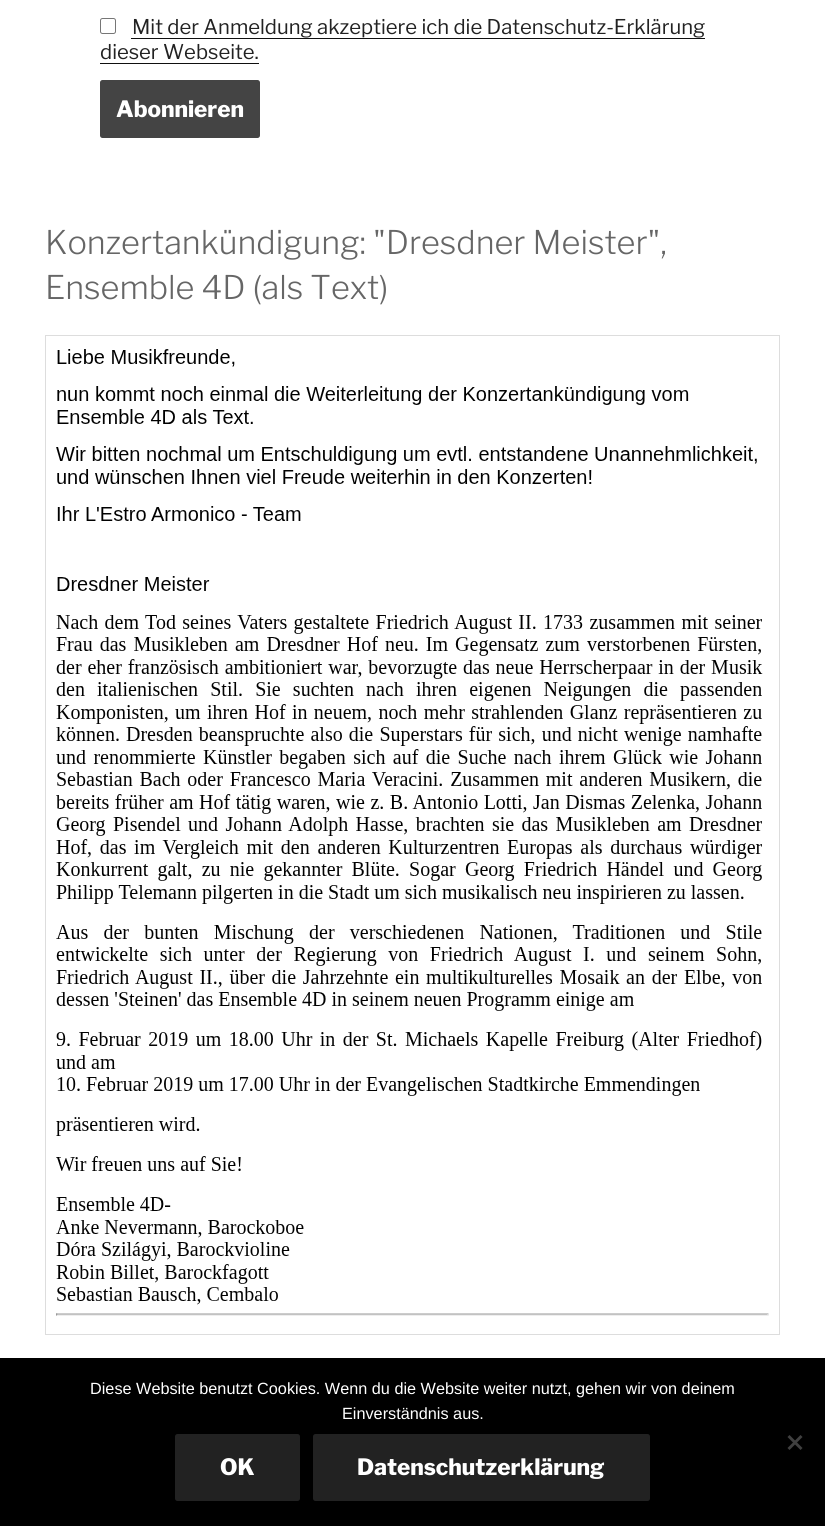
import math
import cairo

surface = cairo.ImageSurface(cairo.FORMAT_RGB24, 825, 1526)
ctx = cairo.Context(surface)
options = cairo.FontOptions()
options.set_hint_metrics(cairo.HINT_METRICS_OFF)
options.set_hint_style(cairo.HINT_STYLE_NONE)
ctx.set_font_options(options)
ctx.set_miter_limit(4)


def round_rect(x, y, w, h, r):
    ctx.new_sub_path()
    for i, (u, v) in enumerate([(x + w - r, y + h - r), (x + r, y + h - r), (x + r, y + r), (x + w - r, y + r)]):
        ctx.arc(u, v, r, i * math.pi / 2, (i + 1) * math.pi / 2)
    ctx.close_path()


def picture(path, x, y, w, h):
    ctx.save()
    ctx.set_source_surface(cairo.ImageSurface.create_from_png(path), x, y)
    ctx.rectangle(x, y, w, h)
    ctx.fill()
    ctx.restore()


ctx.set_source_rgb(1, 1, 1)
ctx.paint()
round_rect(100.5, 18.5, 15, 15, 2)
ctx.set_source_rgb(0.463, 0.463, 0.463)
ctx.set_line_width(1)
ctx.stroke()
ctx.select_font_face("Libre Franklin")
ctx.set_font_size(20.25)
ctx.set_source_rgb(0.133, 0.133, 0.133)
ctx.move_to(132, 34)
ctx.show_text("Mit der Anmeldung akzeptiere ich die Datenschutz-Erklärung")
ctx.set_source_rgb(0.059, 0.059, 0.059)
ctx.rectangle(131, 38, 574, 1)
ctx.fill()
ctx.set_source_rgb(0.133, 0.133, 0.133)
ctx.move_to(100, 59)
ctx.show_text("dieser Webseite.")
ctx.set_source_rgb(0.059, 0.059, 0.059)
ctx.rectangle(100, 63, 159, 1)
ctx.fill()
ctx.set_source_rgb(0.267, 0.267, 0.267)
round_rect(100, 80, 160, 58, 2.5)
ctx.fill()
ctx.select_font_face("Libre Franklin ExtraBold")
ctx.set_font_size(22.5)
ctx.set_source_rgb(1, 1, 1)
ctx.move_to(116, 117)
ctx.show_text("Abonnieren")
ctx.select_font_face("Libre Franklin Light")
ctx.set_font_size(32.5)
ctx.set_source_rgb(0.4, 0.4, 0.4)
ctx.move_to(45, 254)
ctx.show_text("Konzertankündigung: \"Dresdner Meister\",")
ctx.move_to(45, 299)
ctx.show_text("Ensemble 4D (als Text)")
ctx.rectangle(45.5, 335.5, 734, 999)
ctx.set_source_rgb(0.867, 0.867, 0.867)
ctx.stroke()
picture("img1.png", 56, 349, 713, 967)
ctx.set_source_rgb(0, 0, 0)
ctx.rectangle(0, 1358, 825, 168)
ctx.fill()
ctx.select_font_face("Liberation Sans")
ctx.set_font_size(16.25)
ctx.set_source_rgb(1, 1, 1)
ctx.move_to(90, 1394)
ctx.show_text("Diese Website benutzt Cookies. Wenn du die Website weiter nutzt, gehen wir von deinem")
ctx.move_to(342, 1419)
ctx.show_text("Einverständnis aus.")
ctx.set_source_rgb(0.251, 0.251, 0.251)
ctx.new_path()
ctx.move_to(800.5, 1435)
ctx.line_to(802.5, 1437)
ctx.line_to(789.5, 1450)
ctx.line_to(787.5, 1448)
ctx.close_path()
ctx.fill()
ctx.new_path()
ctx.move_to(787.5, 1437)
ctx.line_to(789.5, 1435)
ctx.line_to(802.5, 1448)
ctx.line_to(800.5, 1450)
ctx.close_path()
ctx.fill()
ctx.set_source_rgb(0.133, 0.133, 0.133)
round_rect(175, 1434, 125, 67, 2.5)
ctx.fill()
ctx.select_font_face("Libre Franklin ExtraBold")
ctx.set_font_size(22.5)
ctx.set_source_rgb(1, 1, 1)
ctx.move_to(220, 1475)
ctx.show_text("OK")
ctx.set_source_rgb(0.133, 0.133, 0.133)
round_rect(313, 1434, 337, 67, 2.5)
ctx.fill()
ctx.set_source_rgb(1, 1, 1)
ctx.move_to(357, 1475)
ctx.show_text("Datenschutzerklärung")
surface.write_to_png("page.png")
